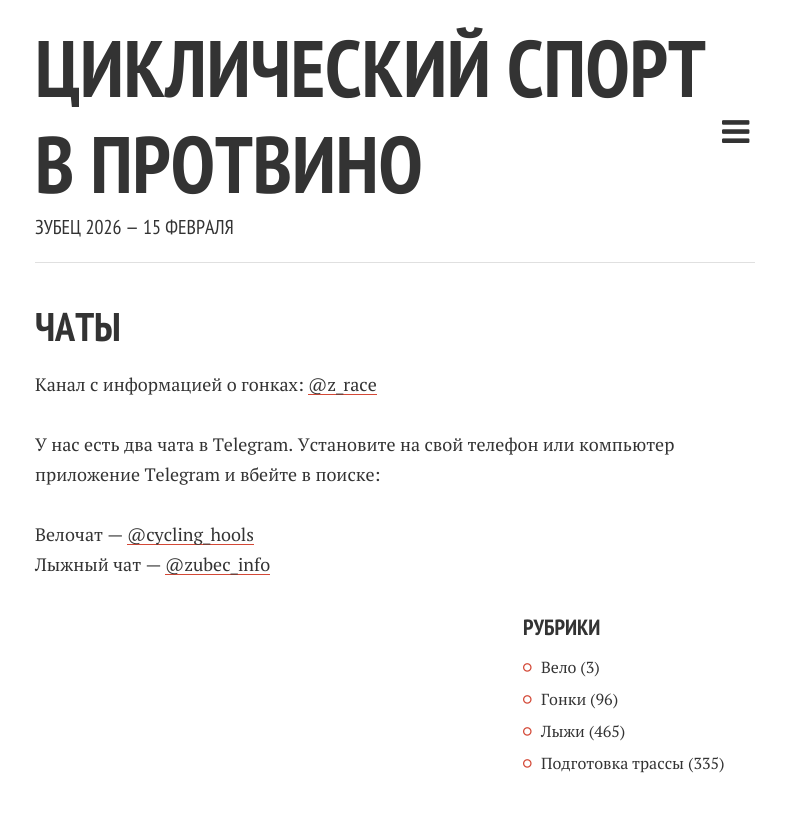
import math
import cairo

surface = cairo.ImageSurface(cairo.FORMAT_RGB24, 789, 840)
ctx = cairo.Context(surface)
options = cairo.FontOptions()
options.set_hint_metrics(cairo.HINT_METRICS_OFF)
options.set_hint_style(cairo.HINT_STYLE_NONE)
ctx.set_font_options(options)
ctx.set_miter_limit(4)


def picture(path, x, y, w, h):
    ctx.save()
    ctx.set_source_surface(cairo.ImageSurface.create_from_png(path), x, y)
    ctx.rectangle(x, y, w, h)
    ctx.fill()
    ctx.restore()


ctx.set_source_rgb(1, 1, 1)
ctx.paint()
ctx.select_font_face("PT Sans Narrow", cairo.FONT_SLANT_NORMAL, cairo.FONT_WEIGHT_BOLD)
ctx.set_font_size(80)
ctx.set_source_rgb(0.2, 0.2, 0.2)
ctx.move_to(35, 97)
ctx.show_text("ЦИКЛИЧЕСКИЙ СПОРТ")
ctx.move_to(35, 193)
ctx.show_text("В ПРОТВИНО")
ctx.select_font_face("PT Sans Narrow")
ctx.set_font_size(20)
ctx.move_to(35, 234)
ctx.show_text("ЗУБЕЦ 2026 — 15 ФЕВРАЛЯ")
picture("img1.png", 722, 120, 28, 23)
ctx.set_source_rgb(0.878, 0.878, 0.878)
ctx.rectangle(35, 262, 720, 1)
ctx.fill()
ctx.select_font_face("PT Sans Narrow", cairo.FONT_SLANT_NORMAL, cairo.FONT_WEIGHT_BOLD)
ctx.set_font_size(40)
ctx.set_source_rgb(0.2, 0.2, 0.2)
ctx.move_to(35, 341)
ctx.show_text("ЧАТЫ")
ctx.select_font_face("PT Serif")
ctx.set_font_size(18)
ctx.move_to(35, 391)
ctx.show_text("Канал с информацией о гонках:")
ctx.set_source_rgb(0.827, 0.282, 0.212)
ctx.rectangle(308, 394, 69, 1)
ctx.fill()
ctx.set_source_rgb(0.2, 0.2, 0.2)
ctx.move_to(308, 391)
ctx.show_text("@z_race")
ctx.move_to(35, 451)
ctx.show_text("У нас есть два чата в Telegram. Установите на свой телефон или компьютер")
ctx.move_to(35, 481)
ctx.show_text("приложение Telegram и вбейте в поиске:")
ctx.move_to(35, 541)
ctx.show_text("Велочат —")
ctx.set_source_rgb(0.827, 0.282, 0.212)
ctx.rectangle(127, 544, 127, 1)
ctx.fill()
ctx.set_source_rgb(0.2, 0.2, 0.2)
ctx.move_to(127, 541)
ctx.show_text("@cycling_hools")
ctx.move_to(35, 571)
ctx.show_text("Лыжный чат —")
ctx.set_source_rgb(0.827, 0.282, 0.212)
ctx.rectangle(165, 574, 105, 1)
ctx.fill()
ctx.set_source_rgb(0.2, 0.2, 0.2)
ctx.move_to(165, 571)
ctx.show_text("@zubec_info")
ctx.select_font_face("PT Sans Narrow", cairo.FONT_SLANT_NORMAL, cairo.FONT_WEIGHT_BOLD)
ctx.set_font_size(22)
ctx.move_to(523, 635)
ctx.show_text("РУБРИКИ")
picture("img2.png", 523, 663, 9, 9)
ctx.select_font_face("PT Serif")
ctx.set_font_size(16)
ctx.move_to(541, 673)
ctx.show_text("Вело (3)")
picture("img2.png", 523, 695, 9, 9)
ctx.move_to(541, 705)
ctx.show_text("Гонки (96)")
picture("img2.png", 523, 727, 9, 9)
ctx.move_to(541, 737)
ctx.show_text("Лыжи (465)")
picture("img2.png", 523, 759, 9, 9)
ctx.move_to(541, 769)
ctx.show_text("Подготовка трассы (335)")
surface.write_to_png("page.png")
